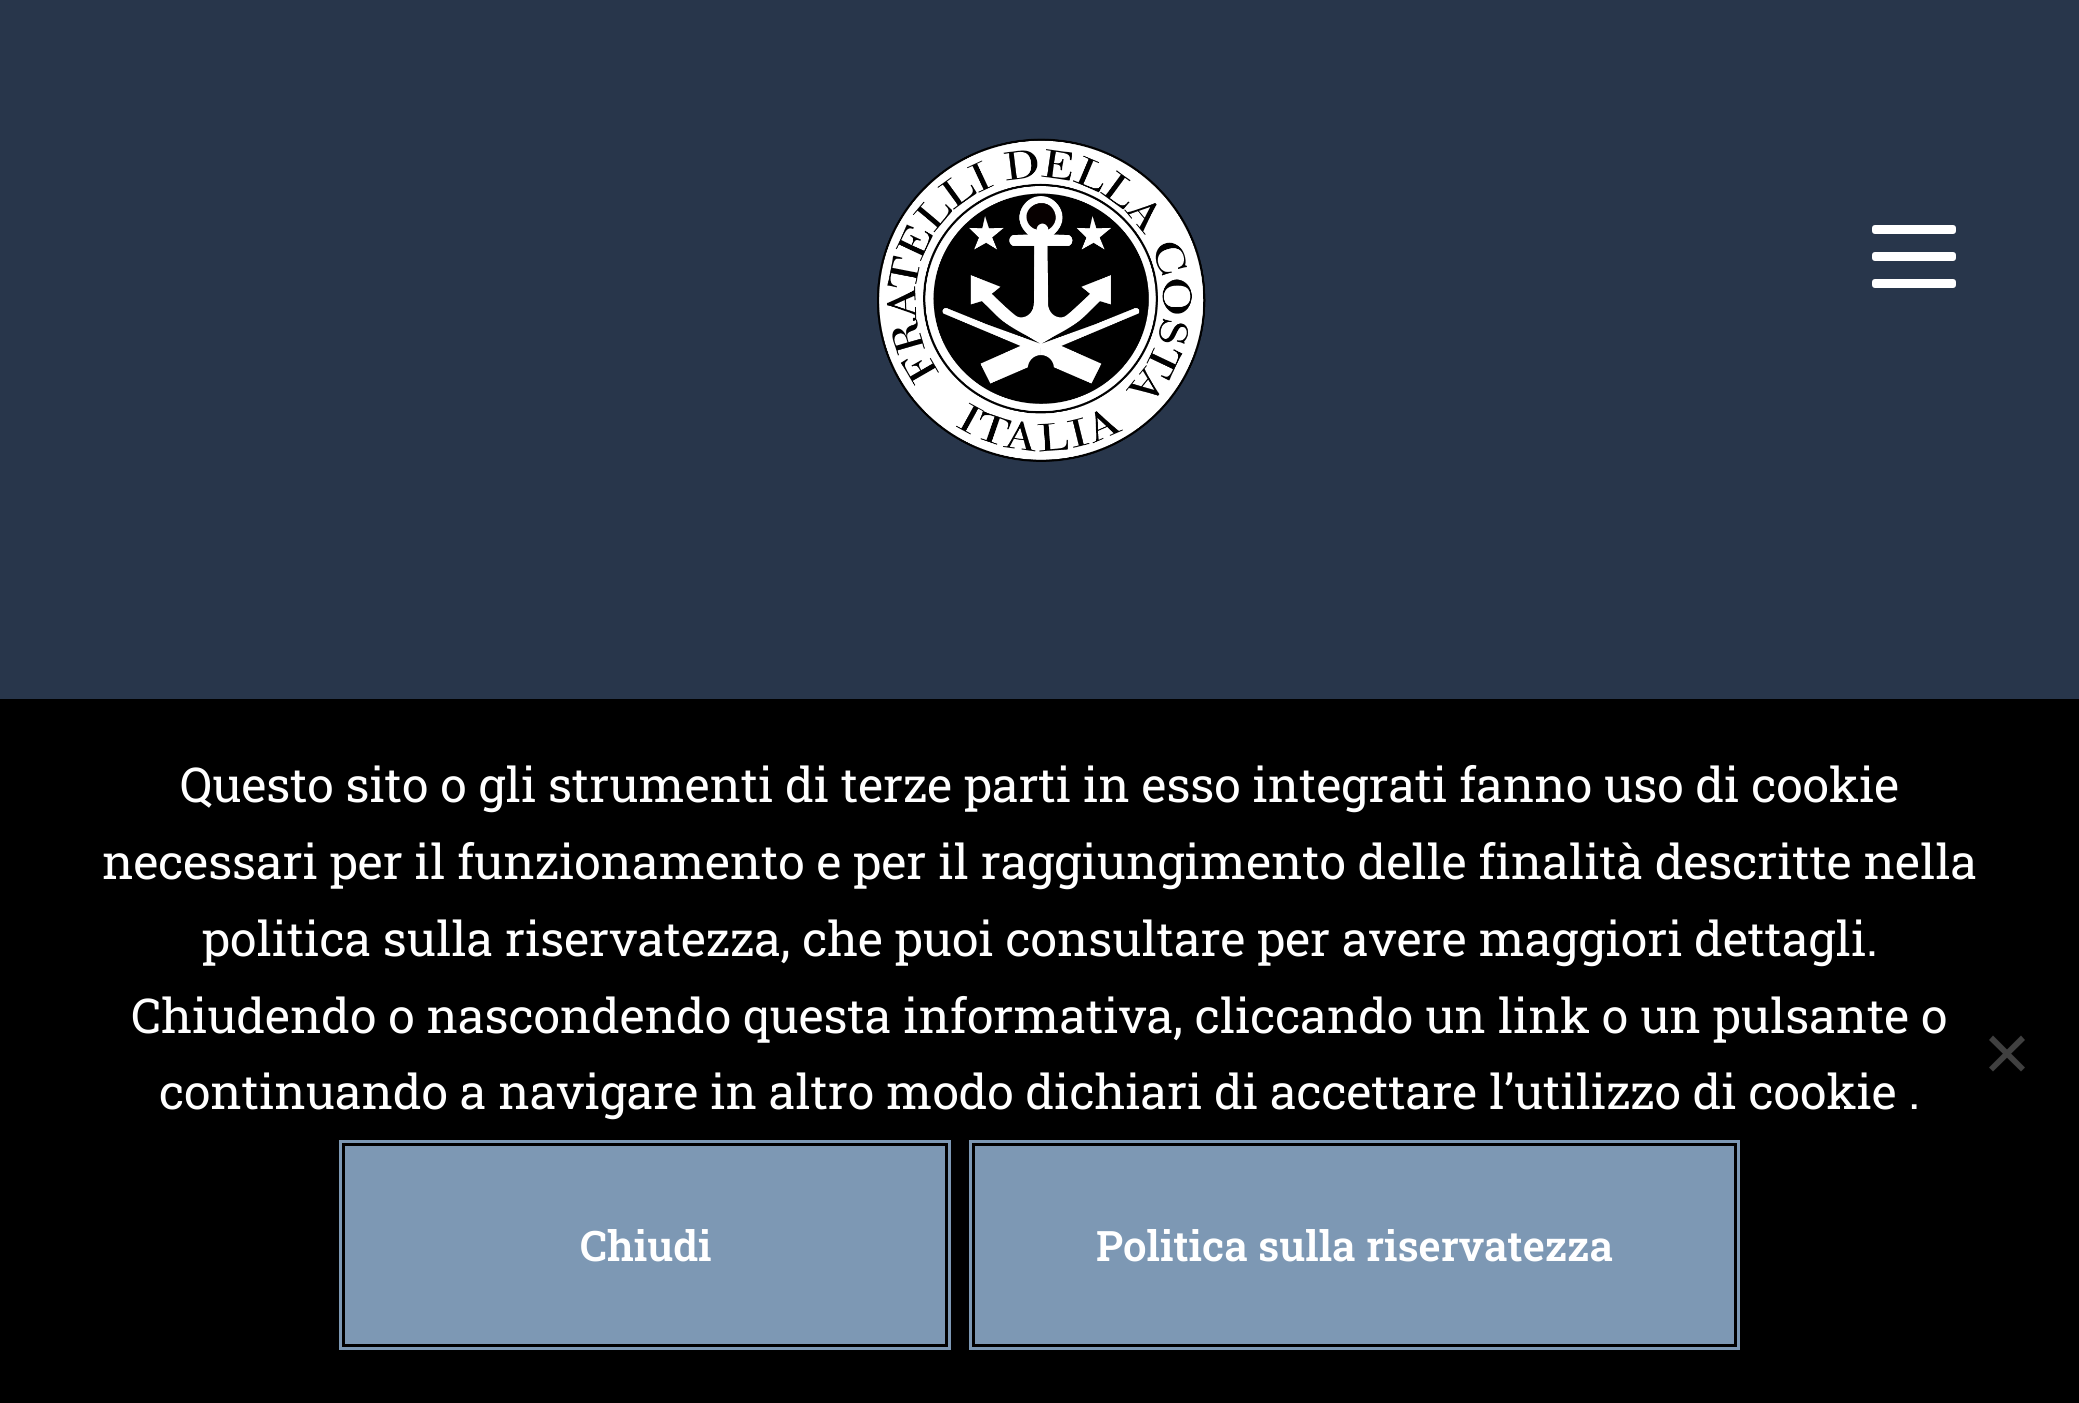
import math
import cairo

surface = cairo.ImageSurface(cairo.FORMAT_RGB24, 2079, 1403)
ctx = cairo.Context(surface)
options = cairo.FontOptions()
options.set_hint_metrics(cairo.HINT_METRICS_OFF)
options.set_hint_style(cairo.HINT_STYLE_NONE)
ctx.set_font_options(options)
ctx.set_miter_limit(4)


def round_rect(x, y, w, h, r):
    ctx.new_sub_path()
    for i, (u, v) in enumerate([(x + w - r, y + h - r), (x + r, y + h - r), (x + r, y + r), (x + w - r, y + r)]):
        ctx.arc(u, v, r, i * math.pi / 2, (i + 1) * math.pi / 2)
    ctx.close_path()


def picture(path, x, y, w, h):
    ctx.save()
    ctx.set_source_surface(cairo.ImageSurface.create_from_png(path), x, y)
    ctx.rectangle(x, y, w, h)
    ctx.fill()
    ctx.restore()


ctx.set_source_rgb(0.157, 0.212, 0.294)
ctx.paint()
picture("img1.png", 877, 138, 329, 324)
ctx.set_source_rgb(1, 1, 1)
round_rect(1872, 225, 84, 9, 3)
ctx.fill()
round_rect(1872, 252, 84, 9, 3)
ctx.fill()
round_rect(1872, 279, 84, 9, 3)
ctx.fill()
ctx.set_source_rgb(0, 0, 0)
ctx.rectangle(0, 699, 2079, 704)
ctx.fill()
ctx.select_font_face("Roboto Slab")
ctx.set_font_size(48)
ctx.set_source_rgb(1, 1, 1)
ctx.move_to(180, 802)
ctx.show_text("Questo sito o gli strumenti di terze parti in esso integrati fanno uso di cookie")
ctx.move_to(102, 879)
ctx.show_text("necessari per il funzionamento e per il raggiungimento delle finalità descritte nella")
ctx.move_to(202, 956)
ctx.show_text("politica sulla riservatezza, che puoi consultare per avere maggiori dettagli.")
ctx.move_to(131, 1033)
ctx.show_text("Chiudendo o nascondendo questa informativa, cliccando un link o un pulsante o")
ctx.move_to(159, 1109)
ctx.show_text("continuando a navigare in altro modo dichiari di accettare l’utilizzo di cookie .")
ctx.set_source_rgb(0.251, 0.251, 0.251)
ctx.new_path()
ctx.move_to(2021, 1035.5)
ctx.line_to(2025, 1040)
ctx.line_to(1993, 1071.5)
ctx.line_to(1989, 1067.5)
ctx.close_path()
ctx.fill()
ctx.new_path()
ctx.move_to(1989, 1040)
ctx.line_to(1993, 1035.5)
ctx.line_to(2025, 1067.5)
ctx.line_to(2021, 1071.5)
ctx.close_path()
ctx.fill()
ctx.set_source_rgb(0.49, 0.596, 0.706)
ctx.rectangle(345, 1146, 600, 198)
ctx.fill()
ctx.rectangle(340.5, 1141.5, 609, 207)
ctx.set_line_width(3)
ctx.stroke()
ctx.select_font_face("Roboto Slab SemiBold")
ctx.set_font_size(42)
ctx.set_source_rgb(1, 1, 1)
ctx.move_to(580, 1261)
ctx.show_text("Chiudi")
ctx.set_source_rgb(0.49, 0.596, 0.706)
ctx.rectangle(975, 1146, 759, 198)
ctx.fill()
ctx.rectangle(970.5, 1141.5, 768, 207)
ctx.stroke()
ctx.set_source_rgb(1, 1, 1)
ctx.move_to(1096, 1261)
ctx.show_text("Politica sulla riservatezza")
surface.write_to_png("page.png")
